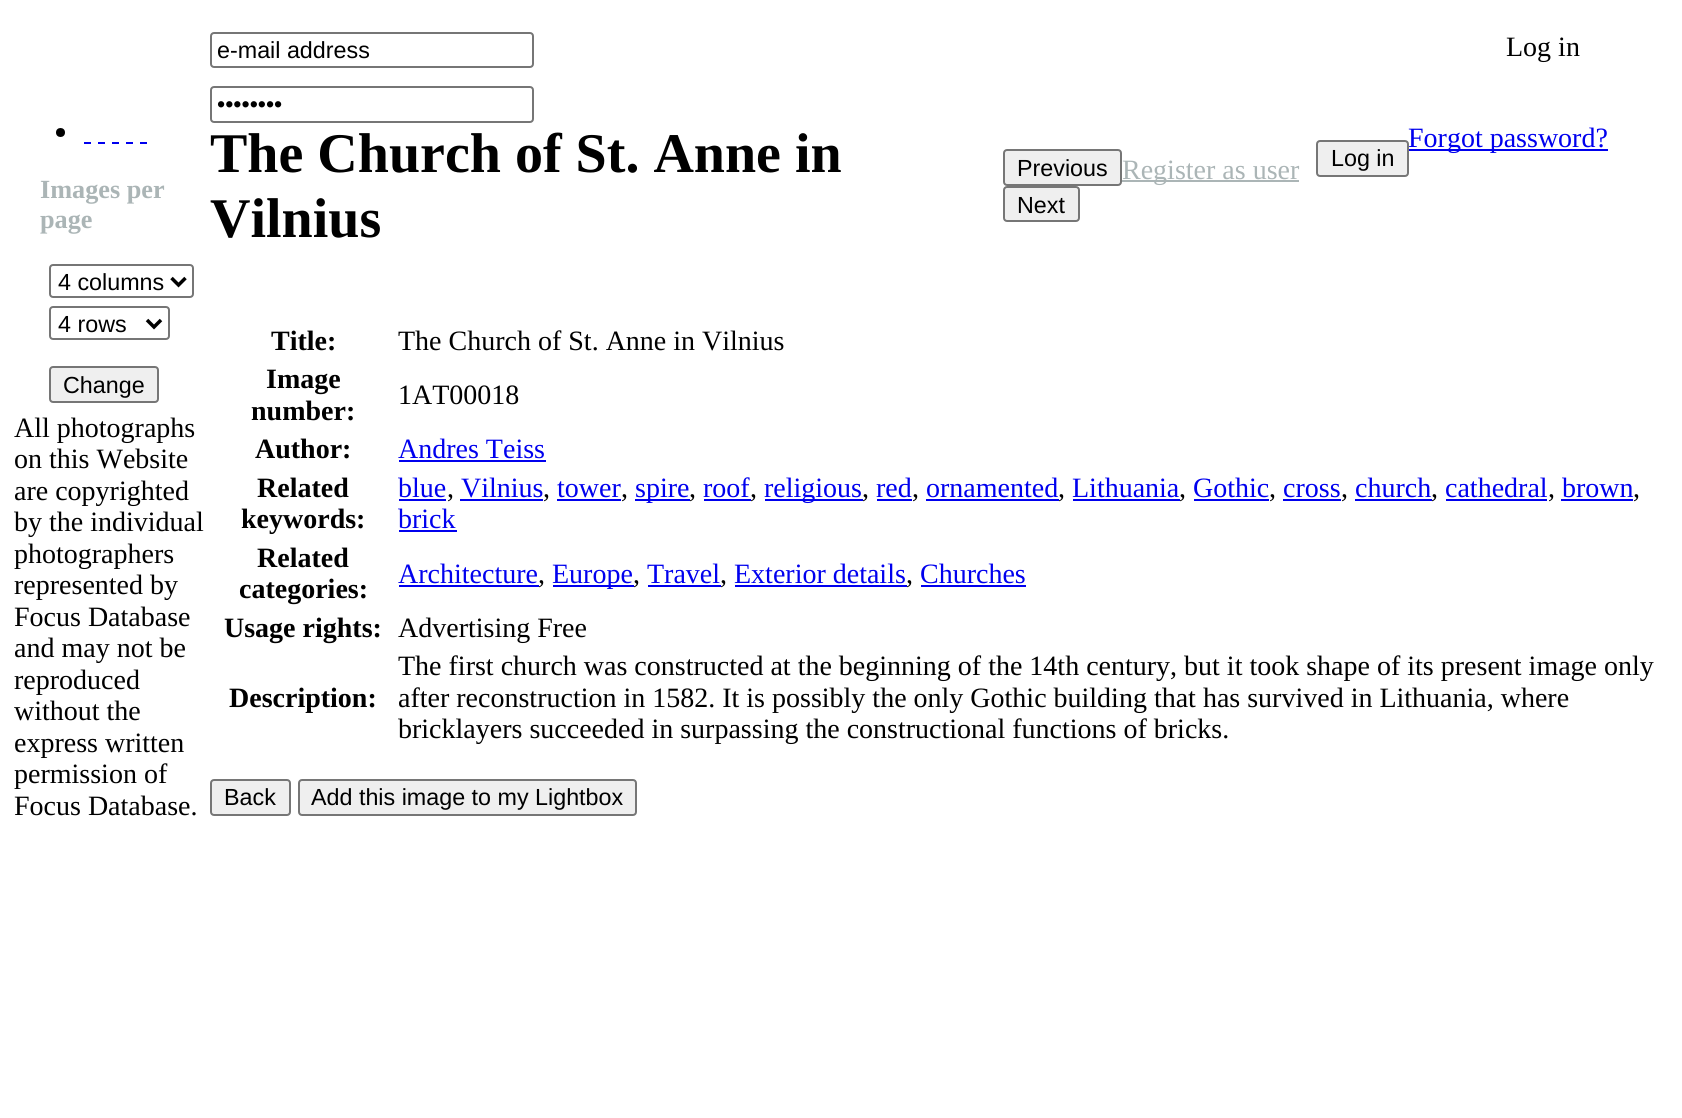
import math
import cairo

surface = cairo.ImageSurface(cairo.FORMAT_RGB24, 1682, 1118)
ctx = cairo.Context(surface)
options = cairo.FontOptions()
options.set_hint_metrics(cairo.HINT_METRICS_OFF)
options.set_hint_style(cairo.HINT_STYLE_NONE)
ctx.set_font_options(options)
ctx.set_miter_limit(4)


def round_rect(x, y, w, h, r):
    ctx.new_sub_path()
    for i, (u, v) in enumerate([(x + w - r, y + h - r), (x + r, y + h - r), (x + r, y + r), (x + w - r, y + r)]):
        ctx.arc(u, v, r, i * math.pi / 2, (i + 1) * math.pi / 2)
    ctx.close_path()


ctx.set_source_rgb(1, 1, 1)
ctx.paint()
ctx.set_source_rgb(0, 0, 0)
ctx.arc(60.5, 132.5, 4.5, 0, 2 * math.pi)
ctx.fill()
ctx.set_source_rgb(0, 0, 0.933)
ctx.rectangle(84, 142, 7, 2)
ctx.fill()
ctx.rectangle(98, 142, 7, 2)
ctx.fill()
ctx.rectangle(112, 142, 7, 2)
ctx.fill()
ctx.rectangle(126, 142, 7, 2)
ctx.fill()
ctx.rectangle(140, 142, 7, 2)
ctx.fill()
ctx.select_font_face("Liberation Serif", cairo.FONT_SLANT_NORMAL, cairo.FONT_WEIGHT_BOLD)
ctx.set_font_size(26.25)
ctx.set_source_rgb(0.671, 0.71, 0.714)
ctx.move_to(40, 198)
ctx.show_text("Images per")
ctx.move_to(40, 228)
ctx.show_text("page")
round_rect(50, 265, 143, 32, 3)
ctx.set_source_rgb(0.463, 0.463, 0.463)
ctx.stroke()
ctx.new_path()
ctx.move_to(171.5, 278)
ctx.line_to(178.5, 285)
ctx.line_to(185.5, 278)
ctx.set_source_rgb(0, 0, 0)
ctx.set_line_width(3.5)
ctx.stroke()
ctx.select_font_face("Liberation Sans")
ctx.set_font_size(23.3)
ctx.move_to(58, 290)
ctx.show_text("4 columns")
round_rect(50, 307, 119, 32, 3)
ctx.set_source_rgb(0.463, 0.463, 0.463)
ctx.set_line_width(2)
ctx.stroke()
ctx.new_path()
ctx.move_to(147, 320)
ctx.line_to(154, 327)
ctx.line_to(161, 320)
ctx.set_source_rgb(0, 0, 0)
ctx.set_line_width(3.5)
ctx.stroke()
ctx.move_to(58, 332)
ctx.show_text("4 rows")
ctx.set_source_rgb(0.937, 0.937, 0.937)
round_rect(50, 367, 108, 35, 3)
ctx.fill_preserve()
ctx.set_source_rgb(0.463, 0.463, 0.463)
ctx.set_line_width(2)
ctx.stroke()
ctx.set_source_rgb(0, 0, 0)
ctx.move_to(63, 393)
ctx.show_text("Change")
ctx.select_font_face("Liberation Serif")
ctx.set_font_size(28)
ctx.move_to(14, 437)
ctx.show_text("All photographs")
ctx.move_to(14, 468)
ctx.show_text("on this Website")
ctx.move_to(14, 500)
ctx.show_text("are copyrighted")
ctx.move_to(14, 531)
ctx.show_text("by the individual")
ctx.move_to(14, 563)
ctx.show_text("photographers")
ctx.move_to(14, 594)
ctx.show_text("represented by")
ctx.move_to(14, 626)
ctx.show_text("Focus Database")
ctx.move_to(14, 657)
ctx.show_text("and may not be")
ctx.move_to(14, 689)
ctx.show_text("reproduced")
ctx.move_to(14, 720)
ctx.show_text("without the")
ctx.move_to(14, 752)
ctx.show_text("express written")
ctx.move_to(14, 783)
ctx.show_text("permission of")
ctx.move_to(14, 815)
ctx.show_text("Focus Database.")
ctx.move_to(1506, 56)
ctx.show_text("Log in")
round_rect(211, 33, 322, 34, 3)
ctx.set_source_rgb(0.463, 0.463, 0.463)
ctx.stroke()
ctx.select_font_face("Liberation Sans")
ctx.set_font_size(23.3)
ctx.set_source_rgb(0, 0, 0)
ctx.move_to(217, 58)
ctx.show_text("e-mail address")
round_rect(211, 87, 322, 35, 3)
ctx.set_source_rgb(0.463, 0.463, 0.463)
ctx.stroke()
ctx.set_source_rgb(0, 0, 0)
ctx.move_to(217, 112)
ctx.show_text("••••••••")
ctx.set_source_rgb(0, 0, 0.933)
ctx.rectangle(1409, 149, 199, 2)
ctx.fill()
ctx.select_font_face("Liberation Serif")
ctx.set_font_size(28)
ctx.move_to(1408, 147)
ctx.show_text("Forgot password?")
ctx.set_source_rgb(0.937, 0.937, 0.937)
round_rect(1317, 141, 91, 35, 3)
ctx.fill_preserve()
ctx.set_source_rgb(0.463, 0.463, 0.463)
ctx.stroke()
ctx.select_font_face("Liberation Sans")
ctx.set_font_size(23.3)
ctx.set_source_rgb(0, 0, 0)
ctx.move_to(1331, 166)
ctx.show_text("Log in")
ctx.set_source_rgb(0.671, 0.71, 0.714)
ctx.rectangle(1122, 180, 177, 2)
ctx.fill()
ctx.select_font_face("Liberation Serif")
ctx.set_font_size(28)
ctx.move_to(1122, 179)
ctx.show_text("Register as user")
ctx.select_font_face("Liberation Serif", cairo.FONT_SLANT_NORMAL, cairo.FONT_WEIGHT_BOLD)
ctx.set_font_size(56)
ctx.set_source_rgb(0, 0, 0)
ctx.move_to(210, 172)
ctx.show_text("The Church of St. Anne in")
ctx.move_to(210, 237)
ctx.show_text("Vilnius")
ctx.set_source_rgb(0.937, 0.937, 0.937)
round_rect(1004, 150, 117, 35, 3)
ctx.fill_preserve()
ctx.set_source_rgb(0.463, 0.463, 0.463)
ctx.stroke()
ctx.select_font_face("Liberation Sans")
ctx.set_font_size(23.3)
ctx.set_source_rgb(0, 0, 0)
ctx.move_to(1017, 176)
ctx.show_text("Previous")
ctx.set_source_rgb(0.937, 0.937, 0.937)
round_rect(1004, 187, 75, 34, 3)
ctx.fill_preserve()
ctx.set_source_rgb(0.463, 0.463, 0.463)
ctx.stroke()
ctx.set_source_rgb(0, 0, 0)
ctx.move_to(1017, 213)
ctx.show_text("Next")
ctx.select_font_face("Liberation Serif", cairo.FONT_SLANT_NORMAL, cairo.FONT_WEIGHT_BOLD)
ctx.set_font_size(28)
ctx.move_to(271, 350)
ctx.show_text("Title:")
ctx.select_font_face("Liberation Serif")
ctx.move_to(398, 350)
ctx.show_text("The Church of St. Anne in Vilnius")
ctx.select_font_face("Liberation Serif", cairo.FONT_SLANT_NORMAL, cairo.FONT_WEIGHT_BOLD)
ctx.move_to(266, 388)
ctx.show_text("Image")
ctx.move_to(251, 420)
ctx.show_text("number:")
ctx.select_font_face("Liberation Serif")
ctx.move_to(398, 404)
ctx.show_text("1AT00018")
ctx.select_font_face("Liberation Serif", cairo.FONT_SLANT_NORMAL, cairo.FONT_WEIGHT_BOLD)
ctx.move_to(255, 458)
ctx.show_text("Author:")
ctx.select_font_face("Liberation Serif")
ctx.set_source_rgb(0, 0, 0.933)
ctx.move_to(398, 458)
ctx.show_text("Andres Teiss")
ctx.rectangle(399, 460, 147, 2)
ctx.fill()
ctx.select_font_face("Liberation Serif", cairo.FONT_SLANT_NORMAL, cairo.FONT_WEIGHT_BOLD)
ctx.set_source_rgb(0, 0, 0)
ctx.move_to(257, 497)
ctx.show_text("Related")
ctx.move_to(241, 528)
ctx.show_text("keywords:")
ctx.select_font_face("Liberation Serif")
ctx.set_source_rgb(0, 0, 0.933)
ctx.move_to(398, 497)
ctx.show_text("blue")
ctx.rectangle(399, 499, 47, 2)
ctx.fill()
ctx.set_source_rgb(0, 0, 0)
ctx.move_to(447, 497)
ctx.show_text(",")
ctx.set_source_rgb(0, 0, 0.933)
ctx.move_to(461, 497)
ctx.show_text("Vilnius")
ctx.rectangle(460, 499, 83, 2)
ctx.fill()
ctx.set_source_rgb(0, 0, 0)
ctx.move_to(543, 497)
ctx.show_text(",")
ctx.set_source_rgb(0, 0, 0.933)
ctx.move_to(557, 497)
ctx.show_text("tower")
ctx.rectangle(557, 499, 64, 2)
ctx.fill()
ctx.set_source_rgb(0, 0, 0)
ctx.move_to(621, 497)
ctx.show_text(",")
ctx.set_source_rgb(0, 0, 0.933)
ctx.rectangle(635, 499, 55, 2)
ctx.fill()
ctx.move_to(635, 497)
ctx.show_text("spire")
ctx.set_source_rgb(0, 0, 0)
ctx.move_to(689, 497)
ctx.show_text(",")
ctx.set_source_rgb(0, 0, 0.933)
ctx.move_to(703, 497)
ctx.show_text("roof")
ctx.rectangle(704, 499, 47, 2)
ctx.fill()
ctx.set_source_rgb(0, 0, 0)
ctx.move_to(750, 497)
ctx.show_text(",")
ctx.set_source_rgb(0, 0, 0.933)
ctx.rectangle(765, 499, 98, 2)
ctx.fill()
ctx.move_to(764, 497)
ctx.show_text("religious")
ctx.set_source_rgb(0, 0, 0)
ctx.move_to(862, 497)
ctx.show_text(",")
ctx.set_source_rgb(0, 0, 0.933)
ctx.move_to(876, 497)
ctx.show_text("red")
ctx.rectangle(877, 499, 35, 2)
ctx.fill()
ctx.set_source_rgb(0, 0, 0)
ctx.move_to(912, 497)
ctx.show_text(",")
ctx.set_source_rgb(0, 0, 0.933)
ctx.move_to(926, 497)
ctx.show_text("ornamented")
ctx.rectangle(926, 499, 133, 2)
ctx.fill()
ctx.set_source_rgb(0, 0, 0)
ctx.move_to(1058, 497)
ctx.show_text(",")
ctx.set_source_rgb(0, 0, 0.933)
ctx.move_to(1072, 497)
ctx.show_text("Lithuania")
ctx.rectangle(1073, 499, 107, 2)
ctx.fill()
ctx.set_source_rgb(0, 0, 0)
ctx.move_to(1179, 497)
ctx.show_text(",")
ctx.set_source_rgb(0, 0, 0.933)
ctx.move_to(1193, 497)
ctx.show_text("Gothic")
ctx.rectangle(1194, 499, 75, 2)
ctx.fill()
ctx.set_source_rgb(0, 0, 0)
ctx.move_to(1269, 497)
ctx.show_text(",")
ctx.set_source_rgb(0, 0, 0.933)
ctx.move_to(1283, 497)
ctx.show_text("cross")
ctx.rectangle(1283, 499, 58, 2)
ctx.fill()
ctx.set_source_rgb(0, 0, 0)
ctx.move_to(1341, 497)
ctx.show_text(",")
ctx.set_source_rgb(0, 0, 0.933)
ctx.move_to(1355, 497)
ctx.show_text("church")
ctx.rectangle(1355, 499, 77, 2)
ctx.fill()
ctx.set_source_rgb(0, 0, 0)
ctx.move_to(1431, 497)
ctx.show_text(",")
ctx.set_source_rgb(0, 0, 0.933)
ctx.move_to(1445, 497)
ctx.show_text("cathedral")
ctx.rectangle(1446, 499, 101, 2)
ctx.fill()
ctx.set_source_rgb(0, 0, 0)
ctx.move_to(1548, 497)
ctx.show_text(",")
ctx.set_source_rgb(0, 0, 0.933)
ctx.move_to(1562, 497)
ctx.show_text("brown")
ctx.rectangle(1561, 499, 72, 2)
ctx.fill()
ctx.set_source_rgb(0, 0, 0)
ctx.move_to(1633, 497)
ctx.show_text(",")
ctx.set_source_rgb(0, 0, 0.933)
ctx.move_to(398, 528)
ctx.show_text("brick")
ctx.rectangle(399, 530, 58, 2)
ctx.fill()
ctx.select_font_face("Liberation Serif", cairo.FONT_SLANT_NORMAL, cairo.FONT_WEIGHT_BOLD)
ctx.set_source_rgb(0, 0, 0)
ctx.move_to(257, 567)
ctx.show_text("Related")
ctx.move_to(239, 598)
ctx.show_text("categories:")
ctx.select_font_face("Liberation Serif")
ctx.set_source_rgb(0, 0, 0.933)
ctx.move_to(398, 583)
ctx.show_text("Architecture")
ctx.rectangle(399, 585, 140, 2)
ctx.fill()
ctx.set_source_rgb(0, 0, 0)
ctx.move_to(538, 583)
ctx.show_text(",")
ctx.set_source_rgb(0, 0, 0.933)
ctx.rectangle(553, 585, 81, 2)
ctx.fill()
ctx.move_to(552, 583)
ctx.show_text("Europe")
ctx.set_source_rgb(0, 0, 0)
ctx.move_to(633, 583)
ctx.show_text(",")
ctx.set_source_rgb(0, 0, 0.933)
ctx.move_to(647, 583)
ctx.show_text("Travel")
ctx.rectangle(648, 585, 73, 2)
ctx.fill()
ctx.set_source_rgb(0, 0, 0)
ctx.move_to(720, 583)
ctx.show_text(",")
ctx.set_source_rgb(0, 0, 0.933)
ctx.move_to(734, 583)
ctx.show_text("Exterior details")
ctx.rectangle(735, 585, 172, 2)
ctx.fill()
ctx.set_source_rgb(0, 0, 0)
ctx.move_to(906, 583)
ctx.show_text(",")
ctx.set_source_rgb(0, 0, 0.933)
ctx.move_to(920, 583)
ctx.show_text("Churches")
ctx.rectangle(921, 585, 105, 2)
ctx.fill()
ctx.select_font_face("Liberation Serif", cairo.FONT_SLANT_NORMAL, cairo.FONT_WEIGHT_BOLD)
ctx.set_source_rgb(0, 0, 0)
ctx.move_to(224, 637)
ctx.show_text("Usage rights:")
ctx.select_font_face("Liberation Serif")
ctx.move_to(398, 637)
ctx.show_text("Advertising Free")
ctx.select_font_face("Liberation Serif", cairo.FONT_SLANT_NORMAL, cairo.FONT_WEIGHT_BOLD)
ctx.move_to(229, 707)
ctx.show_text("Description:")
ctx.select_font_face("Liberation Serif")
ctx.move_to(398, 675)
ctx.show_text("The first church was constructed at the beginning of the 14th century, but it took shape of its present image only")
ctx.move_to(398, 707)
ctx.show_text("after reconstruction in 1582. It is possibly the only Gothic building that has survived in Lithuania, where")
ctx.move_to(398, 738)
ctx.show_text("bricklayers succeeded in surpassing the constructional functions of bricks.")
ctx.set_source_rgb(0.937, 0.937, 0.937)
round_rect(211, 780, 79, 35, 3)
ctx.fill_preserve()
ctx.set_source_rgb(0.463, 0.463, 0.463)
ctx.stroke()
ctx.select_font_face("Liberation Sans")
ctx.set_font_size(23.3)
ctx.set_source_rgb(0, 0, 0)
ctx.move_to(224, 805)
ctx.show_text("Back")
ctx.set_source_rgb(0.937, 0.937, 0.937)
round_rect(299, 780, 337, 35, 3)
ctx.fill_preserve()
ctx.set_source_rgb(0.463, 0.463, 0.463)
ctx.stroke()
ctx.set_source_rgb(0, 0, 0)
ctx.move_to(311, 805)
ctx.show_text("Add this image to my Lightbox")
surface.write_to_png("page.png")
